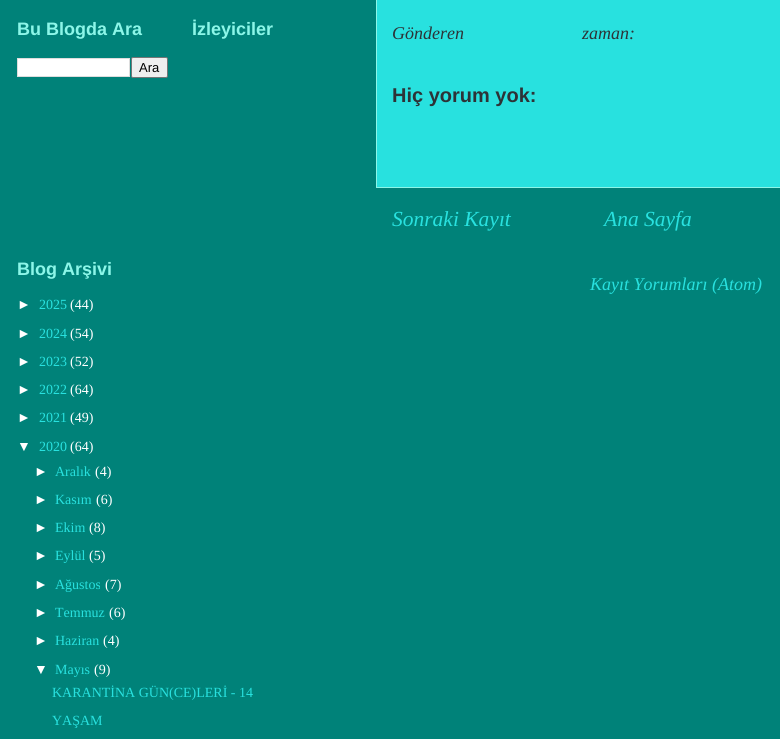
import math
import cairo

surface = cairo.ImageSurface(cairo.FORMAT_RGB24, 780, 739)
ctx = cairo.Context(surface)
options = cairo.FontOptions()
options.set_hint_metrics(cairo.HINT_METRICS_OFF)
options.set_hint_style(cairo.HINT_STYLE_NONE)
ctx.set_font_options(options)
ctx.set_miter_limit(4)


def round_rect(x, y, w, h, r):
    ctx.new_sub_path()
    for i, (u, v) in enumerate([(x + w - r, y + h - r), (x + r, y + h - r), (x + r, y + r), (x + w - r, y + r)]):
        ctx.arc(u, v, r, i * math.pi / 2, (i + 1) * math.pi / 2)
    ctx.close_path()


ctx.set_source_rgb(0, 0.51, 0.475)
ctx.paint()
ctx.select_font_face("Liberation Sans", cairo.FONT_SLANT_NORMAL, cairo.FONT_WEIGHT_BOLD)
ctx.set_font_size(18)
ctx.set_source_rgb(0.549, 0.961, 0.91)
ctx.move_to(17, 35)
ctx.show_text("Bu Blogda Ara")
ctx.set_source_rgb(1, 1, 1)
ctx.rectangle(17.5, 58.5, 112, 18)
ctx.fill_preserve()
ctx.set_source_rgb(0.867, 0.867, 0.867)
ctx.set_line_width(1)
ctx.stroke()
ctx.set_source_rgb(0.937, 0.937, 0.937)
round_rect(131.5, 57.5, 36, 20, 1.5)
ctx.fill_preserve()
ctx.set_source_rgb(0.463, 0.463, 0.463)
ctx.stroke()
ctx.select_font_face("Liberation Sans")
ctx.set_font_size(13)
ctx.set_source_rgb(0, 0, 0)
ctx.move_to(139, 72)
ctx.show_text("Ara")
ctx.select_font_face("Liberation Sans", cairo.FONT_SLANT_NORMAL, cairo.FONT_WEIGHT_BOLD)
ctx.set_font_size(18)
ctx.set_source_rgb(0.549, 0.961, 0.91)
ctx.move_to(192, 35)
ctx.show_text("İzleyiciler")
ctx.move_to(17, 275)
ctx.show_text("Blog Arşivi")
ctx.select_font_face("Liberation Sans")
ctx.set_font_size(14)
ctx.set_source_rgb(1, 1, 1)
ctx.move_to(17, 309)
ctx.show_text("►")
ctx.select_font_face("Liberation Serif")
ctx.set_source_rgb(0.157, 0.882, 0.875)
ctx.move_to(39, 309)
ctx.show_text("2025")
ctx.set_source_rgb(1, 1, 1)
ctx.move_to(70, 309)
ctx.show_text("(44)")
ctx.select_font_face("Liberation Sans")
ctx.move_to(17, 338)
ctx.show_text("►")
ctx.select_font_face("Liberation Serif")
ctx.set_source_rgb(0.157, 0.882, 0.875)
ctx.move_to(39, 338)
ctx.show_text("2024")
ctx.set_source_rgb(1, 1, 1)
ctx.move_to(70, 338)
ctx.show_text("(54)")
ctx.select_font_face("Liberation Sans")
ctx.move_to(17, 366)
ctx.show_text("►")
ctx.select_font_face("Liberation Serif")
ctx.set_source_rgb(0.157, 0.882, 0.875)
ctx.move_to(39, 366)
ctx.show_text("2023")
ctx.set_source_rgb(1, 1, 1)
ctx.move_to(70, 366)
ctx.show_text("(52)")
ctx.select_font_face("Liberation Sans")
ctx.move_to(17, 394)
ctx.show_text("►")
ctx.select_font_face("Liberation Serif")
ctx.set_source_rgb(0.157, 0.882, 0.875)
ctx.move_to(39, 394)
ctx.show_text("2022")
ctx.set_source_rgb(1, 1, 1)
ctx.move_to(70, 394)
ctx.show_text("(64)")
ctx.select_font_face("Liberation Sans")
ctx.move_to(17, 422)
ctx.show_text("►")
ctx.select_font_face("Liberation Serif")
ctx.set_source_rgb(0.157, 0.882, 0.875)
ctx.move_to(39, 422)
ctx.show_text("2021")
ctx.set_source_rgb(1, 1, 1)
ctx.move_to(70, 422)
ctx.show_text("(49)")
ctx.select_font_face("Liberation Sans")
ctx.move_to(17, 451)
ctx.show_text("▼")
ctx.select_font_face("Liberation Serif")
ctx.set_source_rgb(0.157, 0.882, 0.875)
ctx.move_to(39, 451)
ctx.show_text("2020")
ctx.set_source_rgb(1, 1, 1)
ctx.move_to(70, 451)
ctx.show_text("(64)")
ctx.select_font_face("Liberation Sans")
ctx.move_to(34, 476)
ctx.show_text("►")
ctx.select_font_face("Liberation Serif")
ctx.set_source_rgb(0.157, 0.882, 0.875)
ctx.move_to(55, 476)
ctx.show_text("Aralık")
ctx.set_source_rgb(1, 1, 1)
ctx.move_to(95, 476)
ctx.show_text("(4)")
ctx.select_font_face("Liberation Sans")
ctx.move_to(34, 504)
ctx.show_text("►")
ctx.select_font_face("Liberation Serif")
ctx.set_source_rgb(0.157, 0.882, 0.875)
ctx.move_to(55, 504)
ctx.show_text("Kasım")
ctx.set_source_rgb(1, 1, 1)
ctx.move_to(96, 504)
ctx.show_text("(6)")
ctx.select_font_face("Liberation Sans")
ctx.move_to(34, 532)
ctx.show_text("►")
ctx.select_font_face("Liberation Serif")
ctx.set_source_rgb(0.157, 0.882, 0.875)
ctx.move_to(55, 532)
ctx.show_text("Ekim")
ctx.set_source_rgb(1, 1, 1)
ctx.move_to(89, 532)
ctx.show_text("(8)")
ctx.select_font_face("Liberation Sans")
ctx.move_to(34, 560)
ctx.show_text("►")
ctx.select_font_face("Liberation Serif")
ctx.set_source_rgb(0.157, 0.882, 0.875)
ctx.move_to(55, 560)
ctx.show_text("Eylül")
ctx.set_source_rgb(1, 1, 1)
ctx.move_to(89, 560)
ctx.show_text("(5)")
ctx.select_font_face("Liberation Sans")
ctx.move_to(34, 589)
ctx.show_text("►")
ctx.select_font_face("Liberation Serif")
ctx.set_source_rgb(0.157, 0.882, 0.875)
ctx.move_to(55, 589)
ctx.show_text("Ağustos")
ctx.set_source_rgb(1, 1, 1)
ctx.move_to(105, 589)
ctx.show_text("(7)")
ctx.select_font_face("Liberation Sans")
ctx.move_to(34, 617)
ctx.show_text("►")
ctx.select_font_face("Liberation Serif")
ctx.set_source_rgb(0.157, 0.882, 0.875)
ctx.move_to(55, 617)
ctx.show_text("Temmuz")
ctx.set_source_rgb(1, 1, 1)
ctx.move_to(109, 617)
ctx.show_text("(6)")
ctx.select_font_face("Liberation Sans")
ctx.move_to(34, 645)
ctx.show_text("►")
ctx.select_font_face("Liberation Serif")
ctx.set_source_rgb(0.157, 0.882, 0.875)
ctx.move_to(55, 645)
ctx.show_text("Haziran")
ctx.set_source_rgb(1, 1, 1)
ctx.move_to(103, 645)
ctx.show_text("(4)")
ctx.select_font_face("Liberation Sans")
ctx.move_to(34, 674)
ctx.show_text("▼")
ctx.select_font_face("Liberation Serif")
ctx.set_source_rgb(0.157, 0.882, 0.875)
ctx.move_to(55, 674)
ctx.show_text("Mayıs")
ctx.set_source_rgb(1, 1, 1)
ctx.move_to(94, 674)
ctx.show_text("(9)")
ctx.set_source_rgb(0.157, 0.882, 0.875)
ctx.move_to(52, 697)
ctx.show_text("KARANTİNA GÜN(CE)LERİ - 14")
ctx.move_to(52, 725)
ctx.show_text("YAŞAM")
ctx.rectangle(376.5, -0.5, 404, 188)
ctx.fill_preserve()
ctx.set_source_rgb(0.549, 0.961, 0.91)
ctx.stroke()
ctx.select_font_face("Liberation Serif", cairo.FONT_SLANT_ITALIC)
ctx.set_font_size(18)
ctx.set_source_rgb(0.176, 0.2, 0.216)
ctx.move_to(392, 39)
ctx.show_text("Gönderen")
ctx.move_to(582, 39)
ctx.show_text("zaman:")
ctx.select_font_face("Liberation Sans", cairo.FONT_SLANT_NORMAL, cairo.FONT_WEIGHT_BOLD)
ctx.set_font_size(20)
ctx.move_to(392, 102)
ctx.show_text("Hiç yorum yok:")
ctx.select_font_face("Liberation Serif", cairo.FONT_SLANT_ITALIC)
ctx.set_font_size(21.5)
ctx.set_source_rgb(0.157, 0.882, 0.875)
ctx.move_to(392, 226)
ctx.show_text("Sonraki Kayıt")
ctx.move_to(604, 226)
ctx.show_text("Ana Sayfa")
ctx.set_font_size(18)
ctx.move_to(590, 290)
ctx.show_text("Kayıt Yorumları (Atom)")
surface.write_to_png("page.png")
